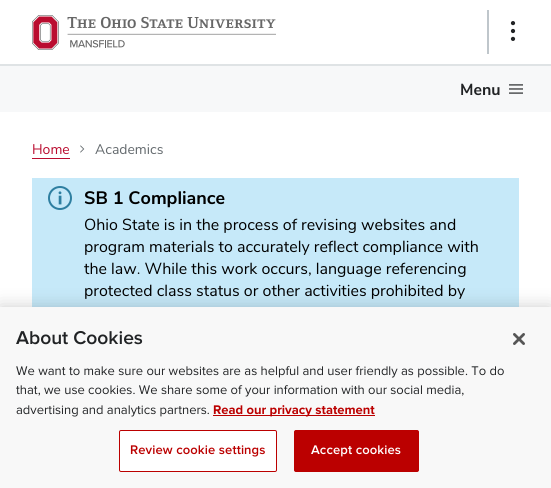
import math
import cairo

surface = cairo.ImageSurface(cairo.FORMAT_RGB24, 551, 488)
ctx = cairo.Context(surface)
options = cairo.FontOptions()
options.set_hint_metrics(cairo.HINT_METRICS_OFF)
options.set_hint_style(cairo.HINT_STYLE_NONE)
ctx.set_font_options(options)
ctx.set_miter_limit(4)


def spaced_text(x, y, s, letter, word):
    ctx.move_to(x, y)
    for ch in s:
        ctx.show_text(ch)
        ctx.rel_move_to(letter + word * (ch == ' '), 0)


def round_rect(x, y, w, h, r):
    ctx.new_sub_path()
    for i, (u, v) in enumerate([(x + w - r, y + h - r), (x + r, y + h - r), (x + r, y + r), (x + w - r, y + r)]):
        ctx.arc(u, v, r, i * math.pi / 2, (i + 1) * math.pi / 2)
    ctx.close_path()


def shadow(x, y, w, h, r, blur, alpha):
    ctx.push_group_with_content(cairo.CONTENT_ALPHA)
    ctx.set_operator(cairo.OPERATOR_SOURCE)
    for i in range(15, -16, -2):
        e = blur * i / 6
        if min(w, h) + 2 * e > 0:
            ctx.set_source_rgba(0, 0, 0, alpha * math.erfc((i - 1) / 8.5) / 2)
            round_rect(x - e, y - e, w + 2 * e, h + 2 * e, max(0, min(r + e + blur * .6, min(w, h) / 2 + e)))
            ctx.fill()
    ctx.mask(ctx.pop_group())


def picture(path, x, y, w, h):
    ctx.save()
    ctx.set_source_surface(cairo.ImageSurface.create_from_png(path), x, y)
    ctx.rectangle(x, y, w, h)
    ctx.fill()
    ctx.restore()


ctx.set_source_rgb(1, 1, 1)
ctx.paint()
ctx.set_source_rgb(0.875, 0.89, 0.898)
ctx.rectangle(0, 64, 551, 2)
ctx.fill()
picture("img1.png", 32, 15, 244, 35)
ctx.set_source_rgb(0.749, 0.776, 0.796)
ctx.rectangle(487, 10, 2, 44)
ctx.fill()
picture("img2.png", 510, 21, 6, 20)
ctx.set_source_rgb(0.965, 0.969, 0.973)
ctx.rectangle(0, 66, 551, 46)
ctx.fill()
ctx.select_font_face("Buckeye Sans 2", cairo.FONT_SLANT_NORMAL, cairo.FONT_WEIGHT_BOLD)
ctx.set_font_size(16)
ctx.set_source_rgb(0.129, 0.137, 0.145)
ctx.move_to(460, 95)
ctx.show_text("Menu")
picture("img3.png", 509, 84, 14, 10)
ctx.select_font_face("Buckeye Sans 2")
ctx.set_font_size(14)
ctx.set_source_rgb(0.729, 0.047, 0.184)
ctx.move_to(32, 154)
ctx.show_text("Home")
ctx.rectangle(32, 158, 38, 1)
ctx.fill()
picture("img4.png", 80, 145, 5, 8)
ctx.set_source_rgb(0.392, 0.416, 0.431)
ctx.move_to(95, 154)
ctx.show_text("Academics")
ctx.set_source_rgb(0.776, 0.914, 0.973)
ctx.rectangle(32, 178, 487, 129)
ctx.fill()
picture("img5.png", 48, 186, 24, 24)
ctx.select_font_face("Buckeye Sans 2", cairo.FONT_SLANT_NORMAL, cairo.FONT_WEIGHT_BOLD)
ctx.set_font_size(18)
ctx.set_source_rgb(0, 0, 0)
ctx.move_to(84, 204)
ctx.show_text("SB 1 Compliance")
ctx.select_font_face("Buckeye Sans 2")
ctx.set_font_size(16)
ctx.move_to(84, 230)
ctx.show_text("Ohio State is in the process of revising websites and")
ctx.move_to(84, 252)
ctx.show_text("program materials to accurately reflect compliance with")
ctx.move_to(84, 274)
ctx.show_text("the law. While this work occurs, language referencing")
ctx.move_to(84, 296)
ctx.show_text("protected class status or other activities prohibited by")
ctx.set_source_rgb(0, 0, 0)
shadow(0, 307, 551, 181, 0, 9, 0.2)
ctx.set_source_rgb(0.969, 0.969, 0.969)
ctx.rectangle(0, 307, 551, 181)
ctx.fill()
ctx.select_font_face("Proxima Nova SemiBold")
ctx.set_font_size(19.25)
ctx.set_source_rgb(0.129, 0.137, 0.145)
ctx.move_to(16, 344)
ctx.show_text("About Cookies")
ctx.select_font_face("Proxima Nova")
ctx.set_font_size(13)
ctx.move_to(16, 375)
ctx.show_text("We want to make sure our websites are as helpful and user friendly as possible. To do")
ctx.move_to(16, 394)
ctx.show_text("that, we use cookies. We share some of your information with our social media,")
ctx.move_to(16, 414)
ctx.show_text("advertising and analytics partners.")
ctx.set_source_rgb(0.733, 0, 0)
ctx.rectangle(213, 415, 162, 1)
ctx.fill()
ctx.select_font_face("Proxima Nova", cairo.FONT_SLANT_NORMAL, cairo.FONT_WEIGHT_BOLD)
ctx.move_to(213, 414)
ctx.show_text("Read our privacy statement")
ctx.set_source_rgb(1, 1, 1)
round_rect(119.5, 430.5, 157, 41, 1.5)
ctx.fill_preserve()
ctx.set_source_rgb(0.733, 0, 0)
ctx.set_line_width(1)
ctx.stroke()
ctx.select_font_face("Proxima Nova SemiBold")
spaced_text(130, 454, "Review cookie settings", 0.1, 0)
round_rect(294.5, 430.5, 124, 41, 1.5)
ctx.fill_preserve()
ctx.stroke()
ctx.set_source_rgb(1, 1, 1)
spaced_text(311, 454, "Accept cookies", 0.1, 0)
picture("img6.png", 513, 333, 12, 12)
surface.write_to_png("page.png")
